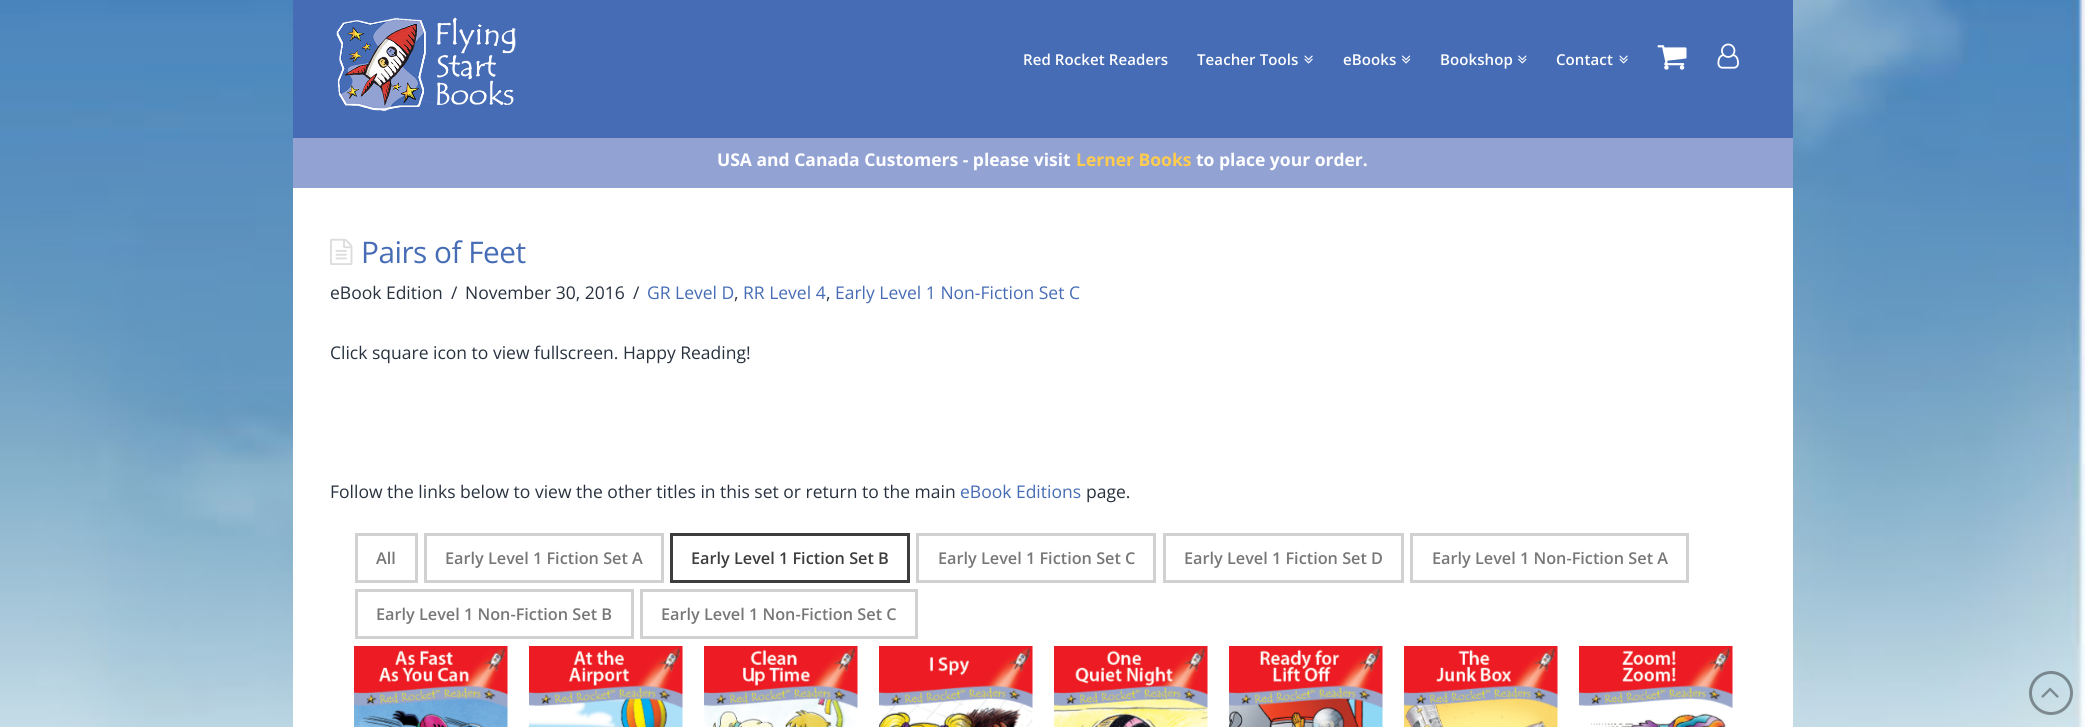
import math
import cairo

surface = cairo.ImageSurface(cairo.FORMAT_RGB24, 2085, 727)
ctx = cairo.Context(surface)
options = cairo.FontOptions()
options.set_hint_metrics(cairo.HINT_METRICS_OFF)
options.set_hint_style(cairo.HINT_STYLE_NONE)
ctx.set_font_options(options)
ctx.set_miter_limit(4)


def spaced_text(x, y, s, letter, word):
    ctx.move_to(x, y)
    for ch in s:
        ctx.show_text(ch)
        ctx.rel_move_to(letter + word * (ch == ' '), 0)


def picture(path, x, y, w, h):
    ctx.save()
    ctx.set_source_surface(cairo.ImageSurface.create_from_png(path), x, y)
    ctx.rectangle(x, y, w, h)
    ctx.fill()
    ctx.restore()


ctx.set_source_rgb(1, 1, 1)
ctx.paint()
picture("img1.png", 0, 0, 2085, 727)
ctx.set_source_rgb(1, 1, 1)
ctx.rectangle(293, 188, 1500, 539)
ctx.fill()
ctx.set_source_rgb(0.275, 0.424, 0.71)
ctx.rectangle(293, 0, 1500, 138)
ctx.fill()
picture("img2.png", 336, 17, 180, 94)
ctx.select_font_face("Open Sans SemiBold")
ctx.set_font_size(15)
ctx.set_source_rgb(1, 1, 1)
spaced_text(1023, 65, "Red Rocket Readers", 0.1, 0)
spaced_text(1197, 65, "Teacher Tools", 0.1, 0)
picture("img3.png", 1304, 55, 9, 9)
spaced_text(1343, 65, "eBooks", 0.1, 0)
picture("img4.png", 1401, 55, 10, 9)
spaced_text(1440, 65, "Bookshop", 0.1, 0)
picture("img5.png", 1518, 55, 9, 9)
spaced_text(1556, 65, "Contact", 0.1, 0)
picture("img3.png", 1619, 55, 9, 9)
picture("img6.png", 1657, 45, 30, 25)
picture("img7.png", 1717, 43, 22, 26)
ctx.set_source_rgb(0.573, 0.635, 0.827)
ctx.rectangle(293, 138, 1500, 50)
ctx.fill()
ctx.select_font_face("Open Sans", cairo.FONT_SLANT_NORMAL, cairo.FONT_WEIGHT_BOLD)
ctx.set_font_size(17.5)
ctx.set_source_rgb(1, 1, 1)
ctx.move_to(717, 166)
ctx.show_text("USA and Canada Customers - please visit")
ctx.set_source_rgb(1, 0.8, 0.306)
ctx.move_to(1076, 166)
ctx.show_text("Lerner Books")
ctx.set_source_rgb(1, 1, 1)
ctx.move_to(1196, 166)
ctx.show_text("to place your order.")
picture("img8.png", 330, 238, 23, 27)
ctx.select_font_face("Open Sans")
ctx.set_font_size(29.75)
ctx.set_source_rgb(0.275, 0.424, 0.71)
spaced_text(361, 263, "Pairs of Feet", -0.5, 0)
ctx.set_font_size(17.5)
ctx.set_source_rgb(0.157, 0.196, 0.247)
ctx.move_to(330, 299)
ctx.show_text("eBook Edition")
ctx.move_to(451, 299)
ctx.show_text("/")
ctx.move_to(465, 299)
ctx.show_text("November 30, 2016")
ctx.move_to(633, 299)
ctx.show_text("/")
ctx.set_source_rgb(0.275, 0.424, 0.71)
ctx.move_to(647, 299)
ctx.show_text("GR Level D")
ctx.set_source_rgb(0.157, 0.196, 0.247)
ctx.move_to(734, 299)
ctx.show_text(",")
ctx.set_source_rgb(0.275, 0.424, 0.71)
ctx.move_to(743, 299)
ctx.show_text("RR Level 4")
ctx.set_source_rgb(0.157, 0.196, 0.247)
ctx.move_to(826, 299)
ctx.show_text(",")
ctx.set_source_rgb(0.275, 0.424, 0.71)
ctx.move_to(835, 299)
ctx.show_text("Early Level 1 Non-Fiction Set C")
ctx.set_source_rgb(0.157, 0.196, 0.247)
ctx.move_to(330, 359)
ctx.show_text("Click square icon to view fullscreen. Happy Reading!")
ctx.move_to(330, 498)
ctx.show_text("Follow the links below to view the other titles in this set or return to the main")
ctx.set_source_rgb(0.275, 0.424, 0.71)
ctx.move_to(960, 498)
ctx.show_text("eBook Editions")
ctx.set_source_rgb(0.157, 0.196, 0.247)
ctx.move_to(1086, 498)
ctx.show_text("page.")
ctx.rectangle(356.5, 534.5, 60, 47)
ctx.set_source_rgb(0.82, 0.82, 0.82)
ctx.set_line_width(3)
ctx.stroke()
ctx.select_font_face("Open Sans SemiBold")
ctx.set_font_size(16.25)
ctx.set_source_rgb(0.467, 0.467, 0.467)
ctx.move_to(376, 564)
ctx.show_text("All")
ctx.rectangle(425.5, 534.5, 237, 47)
ctx.set_source_rgb(0.82, 0.82, 0.82)
ctx.stroke()
ctx.set_source_rgb(0.467, 0.467, 0.467)
ctx.move_to(445, 564)
ctx.show_text("Early Level 1 Fiction Set A")
ctx.rectangle(671.5, 534.5, 237, 47)
ctx.set_source_rgb(0.239, 0.239, 0.239)
ctx.stroke()
ctx.move_to(691, 564)
ctx.show_text("Early Level 1 Fiction Set B")
ctx.rectangle(917.5, 534.5, 237, 47)
ctx.set_source_rgb(0.82, 0.82, 0.82)
ctx.stroke()
ctx.set_source_rgb(0.467, 0.467, 0.467)
ctx.move_to(938, 564)
ctx.show_text("Early Level 1 Fiction Set C")
ctx.rectangle(1164.5, 534.5, 238, 47)
ctx.set_source_rgb(0.82, 0.82, 0.82)
ctx.stroke()
ctx.set_source_rgb(0.467, 0.467, 0.467)
ctx.move_to(1184, 564)
ctx.show_text("Early Level 1 Fiction Set D")
ctx.rectangle(1411.5, 534.5, 276, 47)
ctx.set_source_rgb(0.82, 0.82, 0.82)
ctx.stroke()
ctx.set_source_rgb(0.467, 0.467, 0.467)
ctx.move_to(1432, 564)
ctx.show_text("Early Level 1 Non-Fiction Set A")
ctx.rectangle(356.5, 590.5, 276, 47)
ctx.set_source_rgb(0.82, 0.82, 0.82)
ctx.stroke()
ctx.set_source_rgb(0.467, 0.467, 0.467)
ctx.move_to(376, 620)
ctx.show_text("Early Level 1 Non-Fiction Set B")
ctx.rectangle(641.5, 590.5, 275, 47)
ctx.set_source_rgb(0.82, 0.82, 0.82)
ctx.stroke()
ctx.set_source_rgb(0.467, 0.467, 0.467)
ctx.move_to(661, 620)
ctx.show_text("Early Level 1 Non-Fiction Set C")
picture("img9.png", 354, 646, 154, 81)
picture("img10.png", 529, 646, 154, 81)
picture("img11.png", 704, 646, 154, 81)
picture("img12.png", 879, 646, 154, 81)
picture("img13.png", 1054, 646, 154, 81)
picture("img14.png", 1229, 646, 154, 81)
picture("img15.png", 1404, 646, 154, 81)
picture("img16.png", 1579, 646, 154, 81)
ctx.arc(2051, 693, 20.5, 0, 2 * math.pi)
ctx.set_source_rgba(0, 0, 0, 0.38)
ctx.stroke()
picture("img17.png", 2041, 687, 18, 11)
surface.write_to_png("page.png")
